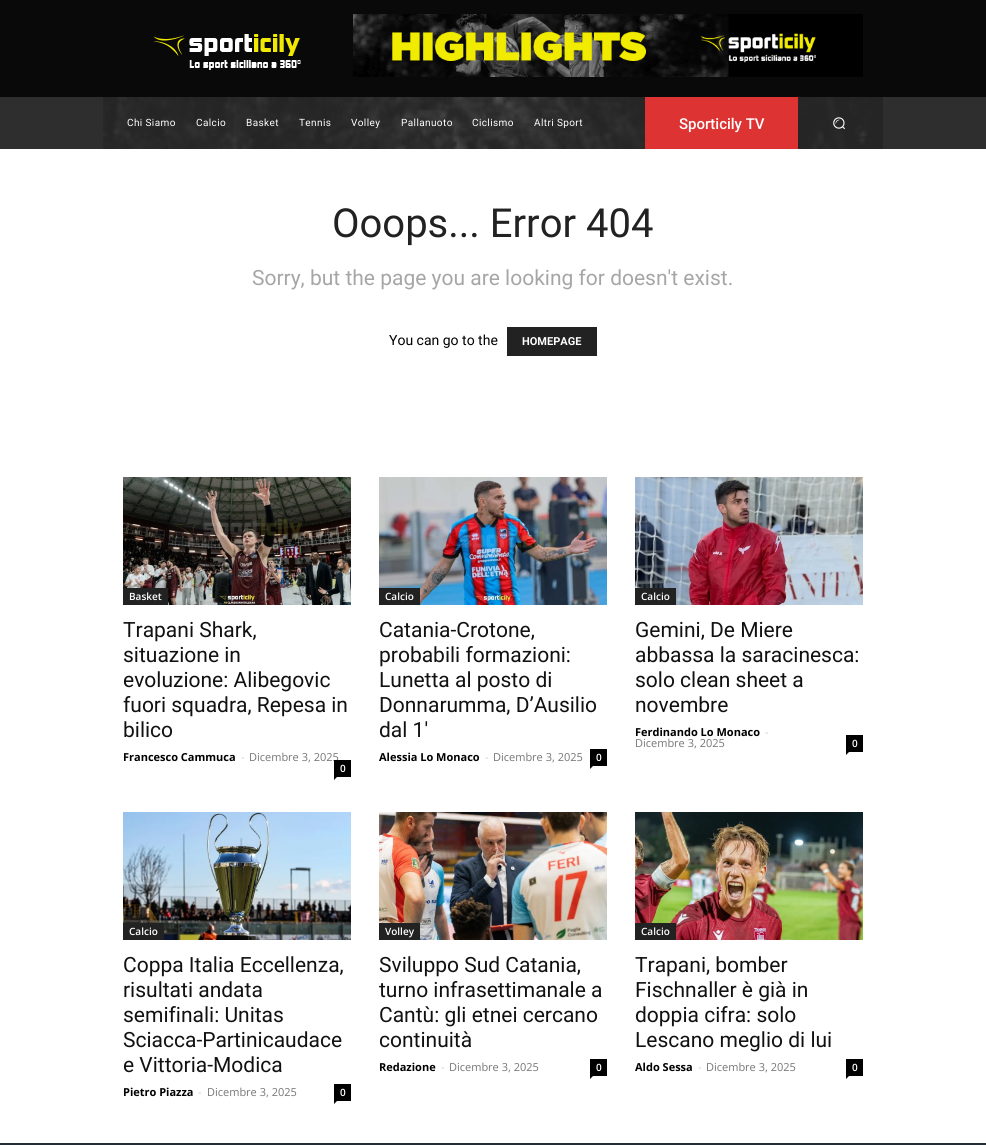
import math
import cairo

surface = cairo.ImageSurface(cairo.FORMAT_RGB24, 986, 1145)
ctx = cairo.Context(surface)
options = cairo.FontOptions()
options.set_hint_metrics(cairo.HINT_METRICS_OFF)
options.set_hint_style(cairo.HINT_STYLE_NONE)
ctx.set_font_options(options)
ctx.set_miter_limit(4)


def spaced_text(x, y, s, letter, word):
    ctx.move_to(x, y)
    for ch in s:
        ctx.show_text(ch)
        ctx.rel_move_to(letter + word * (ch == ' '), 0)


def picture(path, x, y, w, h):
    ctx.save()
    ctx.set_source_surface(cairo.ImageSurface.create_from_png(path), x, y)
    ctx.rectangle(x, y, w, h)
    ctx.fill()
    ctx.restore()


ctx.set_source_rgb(1, 1, 1)
ctx.paint()
ctx.set_source_rgb(0.039, 0.039, 0.039)
ctx.rectangle(0, 0, 986, 97)
ctx.fill()
picture("img1.png", 154, 34, 147, 36)
picture("img2.png", 353, 14, 510, 63)
ctx.set_source_rgb(0.18, 0.18, 0.18)
ctx.rectangle(0, 97, 986, 52)
ctx.fill()
picture("img3.png", 103, 97, 780, 52)
ctx.select_font_face("Roboto")
ctx.set_font_size(10)
ctx.set_source_rgb(1, 1, 1)
spaced_text(127, 126, "Chi Siamo", 0.4, 0)
spaced_text(196, 126, "Calcio", 0.4, 0)
spaced_text(246, 126, "Basket", 0.4, 0)
spaced_text(299, 126, "Tennis", 0.4, 0)
spaced_text(351, 126, "Volley", 0.4, 0)
spaced_text(401, 126, "Pallanuoto", 0.4, 0)
spaced_text(472, 126, "Ciclismo", 0.4, 0)
spaced_text(534, 126, "Altri Sport", 0.4, 0)
ctx.set_source_rgb(0.867, 0.2, 0.2)
ctx.rectangle(645, 97, 153, 52)
ctx.fill()
ctx.select_font_face("Roboto Medium")
ctx.set_font_size(15)
ctx.set_source_rgb(1, 1, 1)
ctx.move_to(679, 129)
ctx.show_text("Sporticily TV")
picture("img4.png", 833, 117, 12, 13)
ctx.select_font_face("Roboto")
ctx.set_font_size(40)
ctx.set_source_rgb(0.133, 0.133, 0.133)
ctx.move_to(332, 237)
ctx.show_text("Ooops... Error 404")
ctx.set_font_size(21)
ctx.set_source_rgb(0.651, 0.651, 0.651)
ctx.move_to(252, 285)
ctx.show_text("Sorry, but the page you are looking for doesn't exist.")
ctx.set_font_size(14)
ctx.set_source_rgb(0, 0, 0)
ctx.move_to(389, 345)
ctx.show_text("You can go to the")
ctx.set_source_rgb(0.133, 0.133, 0.133)
ctx.rectangle(507, 327, 90, 29)
ctx.fill()
ctx.select_font_face("Roboto", cairo.FONT_SLANT_NORMAL, cairo.FONT_WEIGHT_BOLD)
ctx.set_font_size(11)
ctx.set_source_rgb(1, 1, 1)
ctx.move_to(522, 345)
ctx.show_text("HOMEPAGE")
picture("img5.png", 123, 477, 228, 128)
ctx.set_source_rgb(0.133, 0.133, 0.133)
ctx.rectangle(123, 588, 45, 17)
ctx.fill()
ctx.select_font_face("Open Sans SemiBold")
ctx.set_font_size(10)
ctx.set_source_rgb(1, 1, 1)
ctx.move_to(129, 600)
ctx.show_text("Basket")
ctx.select_font_face("Roboto")
ctx.set_font_size(21)
ctx.set_source_rgb(0.067, 0.067, 0.067)
ctx.move_to(123, 637)
ctx.show_text("Trapani Shark,")
ctx.move_to(123, 662)
ctx.show_text("situazione in")
ctx.move_to(123, 687)
ctx.show_text("evoluzione: Alibegovic")
ctx.move_to(123, 712)
ctx.show_text("fuori squadra, Repesa in")
ctx.move_to(123, 737)
ctx.show_text("bilico")
ctx.select_font_face("Open Sans", cairo.FONT_SLANT_NORMAL, cairo.FONT_WEIGHT_BOLD)
ctx.set_font_size(11)
ctx.set_source_rgb(0, 0, 0)
ctx.move_to(123, 761)
ctx.show_text("Francesco Cammuca")
ctx.select_font_face("Open Sans")
ctx.set_source_rgb(0.8, 0.8, 0.8)
ctx.move_to(241, 761)
ctx.show_text("-")
ctx.set_source_rgb(0.463, 0.463, 0.463)
ctx.move_to(249, 761)
ctx.show_text("Dicembre 3, 2025")
ctx.set_source_rgb(0, 0, 0)
ctx.rectangle(334, 760, 17, 17)
ctx.fill()
ctx.select_font_face("Open Sans SemiBold")
ctx.set_font_size(10)
ctx.set_source_rgb(1, 1, 1)
ctx.move_to(340, 772)
ctx.show_text("0")
ctx.set_source_rgb(0, 0, 0)
ctx.new_path()
ctx.move_to(334, 777)
ctx.line_to(337, 777)
ctx.line_to(334, 780)
ctx.close_path()
ctx.fill()
picture("img6.png", 379, 477, 228, 128)
ctx.set_source_rgb(0.133, 0.133, 0.133)
ctx.rectangle(379, 588, 41, 17)
ctx.fill()
ctx.set_source_rgb(1, 1, 1)
ctx.move_to(385, 600)
ctx.show_text("Calcio")
ctx.select_font_face("Roboto")
ctx.set_font_size(21)
ctx.set_source_rgb(0.067, 0.067, 0.067)
ctx.move_to(379, 637)
ctx.show_text("Catania-Crotone,")
ctx.move_to(379, 662)
ctx.show_text("probabili formazioni:")
ctx.move_to(379, 687)
ctx.show_text("Lunetta al posto di")
ctx.move_to(379, 712)
ctx.show_text("Donnarumma, D’Ausilio")
ctx.move_to(379, 737)
ctx.show_text("dal 1′")
ctx.select_font_face("Open Sans", cairo.FONT_SLANT_NORMAL, cairo.FONT_WEIGHT_BOLD)
ctx.set_font_size(11)
ctx.set_source_rgb(0, 0, 0)
ctx.move_to(379, 761)
ctx.show_text("Alessia Lo Monaco")
ctx.select_font_face("Open Sans")
ctx.set_source_rgb(0.8, 0.8, 0.8)
ctx.move_to(485, 761)
ctx.show_text("-")
ctx.set_source_rgb(0.463, 0.463, 0.463)
ctx.move_to(493, 761)
ctx.show_text("Dicembre 3, 2025")
ctx.set_source_rgb(0, 0, 0)
ctx.rectangle(590, 749, 17, 17)
ctx.fill()
ctx.select_font_face("Open Sans SemiBold")
ctx.set_font_size(10)
ctx.set_source_rgb(1, 1, 1)
ctx.move_to(596, 761)
ctx.show_text("0")
ctx.set_source_rgb(0, 0, 0)
ctx.new_path()
ctx.move_to(590, 766)
ctx.line_to(593, 766)
ctx.line_to(590, 769)
ctx.close_path()
ctx.fill()
picture("img7.png", 635, 477, 228, 128)
ctx.set_source_rgb(0.133, 0.133, 0.133)
ctx.rectangle(635, 588, 41, 17)
ctx.fill()
ctx.set_source_rgb(1, 1, 1)
ctx.move_to(641, 600)
ctx.show_text("Calcio")
ctx.select_font_face("Roboto")
ctx.set_font_size(21)
ctx.set_source_rgb(0.067, 0.067, 0.067)
ctx.move_to(635, 637)
ctx.show_text("Gemini, De Miere")
ctx.move_to(635, 662)
ctx.show_text("abbassa la saracinesca:")
ctx.move_to(635, 687)
ctx.show_text("solo clean sheet a")
ctx.move_to(635, 712)
ctx.show_text("novembre")
ctx.select_font_face("Open Sans", cairo.FONT_SLANT_NORMAL, cairo.FONT_WEIGHT_BOLD)
ctx.set_font_size(11)
ctx.set_source_rgb(0, 0, 0)
ctx.move_to(635, 736)
ctx.show_text("Ferdinando Lo Monaco")
ctx.select_font_face("Open Sans")
ctx.set_source_rgb(0.8, 0.8, 0.8)
ctx.move_to(765, 736)
ctx.show_text("-")
ctx.set_source_rgb(0.463, 0.463, 0.463)
ctx.move_to(635, 747)
ctx.show_text("Dicembre 3, 2025")
ctx.set_source_rgb(0, 0, 0)
ctx.rectangle(846, 735, 17, 17)
ctx.fill()
ctx.select_font_face("Open Sans SemiBold")
ctx.set_font_size(10)
ctx.set_source_rgb(1, 1, 1)
ctx.move_to(852, 747)
ctx.show_text("0")
ctx.set_source_rgb(0, 0, 0)
ctx.new_path()
ctx.move_to(846, 752)
ctx.line_to(849, 752)
ctx.line_to(846, 755)
ctx.close_path()
ctx.fill()
picture("img8.png", 123, 812, 228, 128)
ctx.set_source_rgb(0.133, 0.133, 0.133)
ctx.rectangle(123, 923, 41, 17)
ctx.fill()
ctx.set_source_rgb(1, 1, 1)
ctx.move_to(129, 935)
ctx.show_text("Calcio")
ctx.select_font_face("Roboto")
ctx.set_font_size(21)
ctx.set_source_rgb(0.067, 0.067, 0.067)
ctx.move_to(123, 972)
ctx.show_text("Coppa Italia Eccellenza,")
ctx.move_to(123, 997)
ctx.show_text("risultati andata")
ctx.move_to(123, 1022)
ctx.show_text("semifinali: Unitas")
ctx.move_to(123, 1047)
ctx.show_text("Sciacca-Partinicaudace")
ctx.move_to(123, 1072)
ctx.show_text("e Vittoria-Modica")
ctx.select_font_face("Open Sans", cairo.FONT_SLANT_NORMAL, cairo.FONT_WEIGHT_BOLD)
ctx.set_font_size(11)
ctx.set_source_rgb(0, 0, 0)
ctx.move_to(123, 1096)
ctx.show_text("Pietro Piazza")
ctx.select_font_face("Open Sans")
ctx.set_source_rgb(0.8, 0.8, 0.8)
ctx.move_to(198, 1096)
ctx.show_text("-")
ctx.set_source_rgb(0.463, 0.463, 0.463)
ctx.move_to(207, 1096)
ctx.show_text("Dicembre 3, 2025")
ctx.set_source_rgb(0, 0, 0)
ctx.rectangle(334, 1084, 17, 17)
ctx.fill()
ctx.select_font_face("Open Sans SemiBold")
ctx.set_font_size(10)
ctx.set_source_rgb(1, 1, 1)
ctx.move_to(340, 1096)
ctx.show_text("0")
ctx.set_source_rgb(0, 0, 0)
ctx.new_path()
ctx.move_to(334, 1101)
ctx.line_to(337, 1101)
ctx.line_to(334, 1104)
ctx.close_path()
ctx.fill()
picture("img9.png", 379, 812, 228, 128)
ctx.set_source_rgb(0.133, 0.133, 0.133)
ctx.rectangle(379, 923, 41, 17)
ctx.fill()
ctx.set_source_rgb(1, 1, 1)
ctx.move_to(385, 935)
ctx.show_text("Volley")
ctx.select_font_face("Roboto")
ctx.set_font_size(21)
ctx.set_source_rgb(0.067, 0.067, 0.067)
ctx.move_to(379, 972)
ctx.show_text("Sviluppo Sud Catania,")
ctx.move_to(379, 997)
ctx.show_text("turno infrasettimanale a")
ctx.move_to(379, 1022)
ctx.show_text("Cantù: gli etnei cercano")
ctx.move_to(379, 1047)
ctx.show_text("continuità")
ctx.select_font_face("Open Sans", cairo.FONT_SLANT_NORMAL, cairo.FONT_WEIGHT_BOLD)
ctx.set_font_size(11)
ctx.set_source_rgb(0, 0, 0)
ctx.move_to(379, 1071)
ctx.show_text("Redazione")
ctx.select_font_face("Open Sans")
ctx.set_source_rgb(0.8, 0.8, 0.8)
ctx.move_to(441, 1071)
ctx.show_text("-")
ctx.set_source_rgb(0.463, 0.463, 0.463)
ctx.move_to(449, 1071)
ctx.show_text("Dicembre 3, 2025")
ctx.set_source_rgb(0, 0, 0)
ctx.rectangle(590, 1059, 17, 17)
ctx.fill()
ctx.select_font_face("Open Sans SemiBold")
ctx.set_font_size(10)
ctx.set_source_rgb(1, 1, 1)
ctx.move_to(596, 1071)
ctx.show_text("0")
ctx.set_source_rgb(0, 0, 0)
ctx.new_path()
ctx.move_to(590, 1076)
ctx.line_to(593, 1076)
ctx.line_to(590, 1079)
ctx.close_path()
ctx.fill()
picture("img10.png", 635, 812, 228, 128)
ctx.set_source_rgb(0.133, 0.133, 0.133)
ctx.rectangle(635, 923, 41, 17)
ctx.fill()
ctx.set_source_rgb(1, 1, 1)
ctx.move_to(641, 935)
ctx.show_text("Calcio")
ctx.select_font_face("Roboto")
ctx.set_font_size(21)
ctx.set_source_rgb(0.067, 0.067, 0.067)
ctx.move_to(635, 972)
ctx.show_text("Trapani, bomber")
ctx.move_to(635, 997)
ctx.show_text("Fischnaller è già in")
ctx.move_to(635, 1022)
ctx.show_text("doppia cifra: solo")
ctx.move_to(635, 1047)
ctx.show_text("Lescano meglio di lui")
ctx.select_font_face("Open Sans", cairo.FONT_SLANT_NORMAL, cairo.FONT_WEIGHT_BOLD)
ctx.set_font_size(11)
ctx.set_source_rgb(0, 0, 0)
ctx.move_to(635, 1071)
ctx.show_text("Aldo Sessa")
ctx.select_font_face("Open Sans")
ctx.set_source_rgb(0.8, 0.8, 0.8)
ctx.move_to(698, 1071)
ctx.show_text("-")
ctx.set_source_rgb(0.463, 0.463, 0.463)
ctx.move_to(706, 1071)
ctx.show_text("Dicembre 3, 2025")
ctx.set_source_rgb(0, 0, 0)
ctx.rectangle(846, 1059, 17, 17)
ctx.fill()
ctx.select_font_face("Open Sans SemiBold")
ctx.set_font_size(10)
ctx.set_source_rgb(1, 1, 1)
ctx.move_to(852, 1071)
ctx.show_text("0")
ctx.set_source_rgb(0, 0, 0)
ctx.new_path()
ctx.move_to(846, 1076)
ctx.line_to(849, 1076)
ctx.line_to(846, 1079)
ctx.close_path()
ctx.fill()
ctx.set_source_rgb(0.137, 0.176, 0.208)
ctx.rectangle(0, 1143, 986, 2)
ctx.fill()
surface.write_to_png("page.png")
